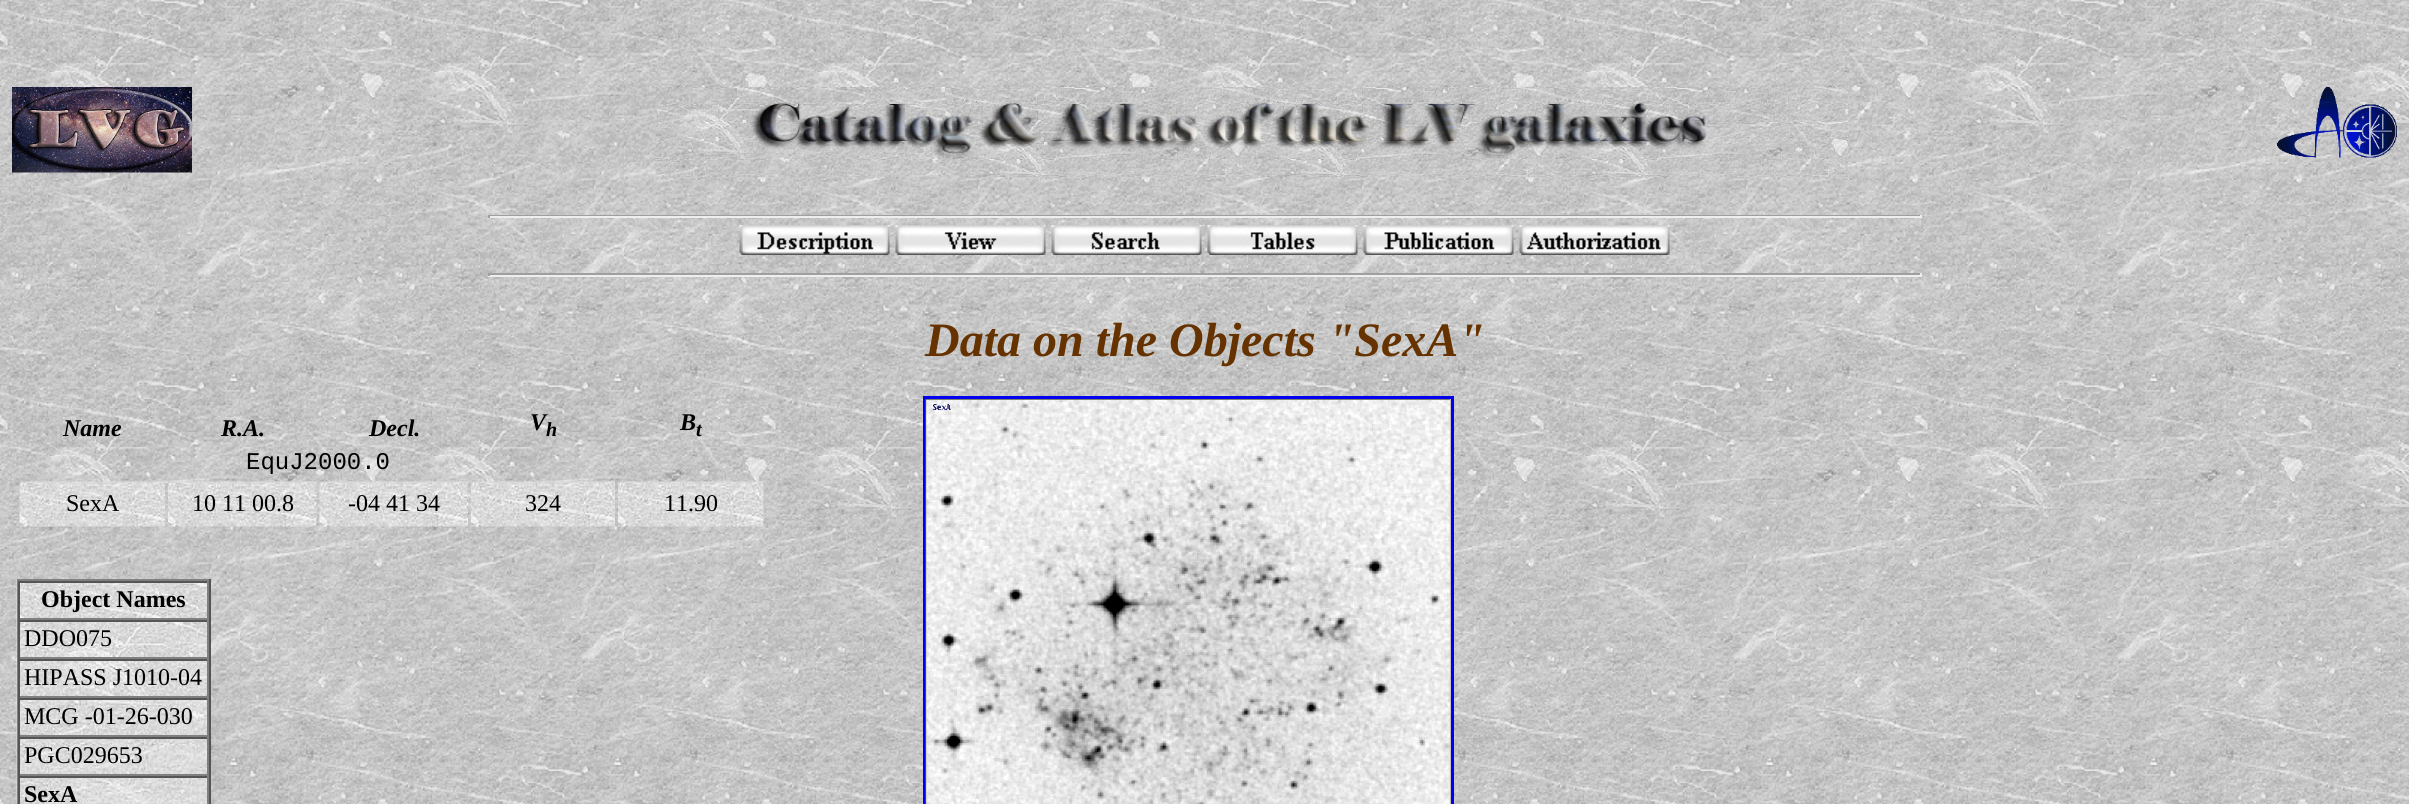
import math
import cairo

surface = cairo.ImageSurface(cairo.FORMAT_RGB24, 2409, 804)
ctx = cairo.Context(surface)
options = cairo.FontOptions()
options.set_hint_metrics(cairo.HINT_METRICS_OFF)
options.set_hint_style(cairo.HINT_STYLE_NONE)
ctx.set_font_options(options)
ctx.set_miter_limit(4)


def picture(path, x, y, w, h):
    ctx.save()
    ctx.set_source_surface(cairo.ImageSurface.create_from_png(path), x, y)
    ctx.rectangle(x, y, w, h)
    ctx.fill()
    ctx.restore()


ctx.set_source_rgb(1, 1, 1)
ctx.paint()
picture("img1.png", 0, 0, 2409, 804)
picture("img2.png", 12, 87, 180, 86)
picture("img3.png", 655, 87, 1193, 90)
picture("img4.png", 2277, 87, 120, 71)
ctx.set_source_rgb(0.624, 0.624, 0.624)
ctx.rectangle(488, 215, 1434, 1)
ctx.fill()
ctx.set_source_rgb(0.933, 0.933, 0.933)
ctx.rectangle(1920, 215, 2, 3)
ctx.fill()
ctx.rectangle(488, 216, 1434, 2)
ctx.fill()
ctx.set_source_rgb(0.624, 0.624, 0.624)
ctx.rectangle(488, 215, 2, 3)
ctx.fill()
picture("img5.png", 739, 225, 151, 30)
picture("img6.png", 895, 225, 151, 30)
picture("img7.png", 1051, 225, 151, 30)
picture("img8.png", 1207, 225, 151, 30)
picture("img9.png", 1363, 225, 151, 30)
picture("img10.png", 1519, 225, 151, 30)
ctx.rectangle(488, 273, 1434, 2)
ctx.fill()
ctx.set_source_rgb(0.933, 0.933, 0.933)
ctx.rectangle(1920, 273, 2, 3)
ctx.fill()
ctx.rectangle(488, 275, 1434, 2)
ctx.fill()
ctx.set_source_rgb(0.624, 0.624, 0.624)
ctx.rectangle(488, 273, 2, 3)
ctx.fill()
ctx.select_font_face("Liberation Serif", cairo.FONT_SLANT_ITALIC, cairo.FONT_WEIGHT_BOLD)
ctx.set_font_size(48)
ctx.set_source_rgb(0.4, 0.2, 0)
ctx.move_to(925, 356)
ctx.show_text("Data on the Objects \"SexA\"")
ctx.set_font_size(24)
ctx.set_source_rgb(0, 0, 0)
ctx.move_to(63, 436)
ctx.show_text("Name")
ctx.move_to(221, 436)
ctx.show_text("R.A.")
ctx.move_to(369, 436)
ctx.show_text("Decl.")
ctx.move_to(530, 430)
ctx.show_text("V")
ctx.set_font_size(20)
ctx.move_to(546, 436)
ctx.show_text("h")
ctx.set_font_size(24)
ctx.move_to(680, 430)
ctx.show_text("B")
ctx.set_font_size(20)
ctx.move_to(696, 436)
ctx.show_text("t")
ctx.select_font_face("Liberation Mono")
ctx.set_font_size(24)
ctx.move_to(246, 469)
ctx.show_text("EquJ2000.0")
picture("img11.png", 19, 481, 146, 46)
ctx.select_font_face("Liberation Serif")
ctx.move_to(66, 511)
ctx.show_text("SexA")
picture("img12.png", 168, 481, 149, 46)
ctx.move_to(192, 511)
ctx.show_text("10 11 00.8")
picture("img13.png", 319, 481, 149, 46)
ctx.move_to(348, 511)
ctx.show_text("-04 41 34")
picture("img14.png", 471, 481, 144, 46)
ctx.move_to(525, 511)
ctx.show_text("324")
picture("img15.png", 618, 481, 146, 46)
ctx.move_to(664, 511)
ctx.show_text("11.90")
ctx.rectangle(924.5, 397.5, 528, 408)
ctx.set_source_rgb(0, 0, 0.933)
ctx.set_line_width(3)
ctx.stroke()
picture("img16.png", 925, 399, 526, 405)
picture("img17.png", 16, 579, 191, 225)
ctx.set_source_rgb(0.502, 0.502, 0.502)
ctx.rectangle(17, 579, 193, 2)
ctx.fill()
ctx.set_source_rgb(0.333, 0.333, 0.333)
ctx.rectangle(209, 579, 2, 225)
ctx.fill()
ctx.set_source_rgb(0.502, 0.502, 0.502)
ctx.rectangle(17, 579, 2, 225)
ctx.fill()
ctx.set_source_rgb(0.333, 0.333, 0.333)
ctx.rectangle(18, 581, 191, 2)
ctx.fill()
ctx.set_source_rgb(0.502, 0.502, 0.502)
ctx.rectangle(207, 581, 2, 39)
ctx.fill()
ctx.rectangle(18, 618, 191, 2)
ctx.fill()
ctx.set_source_rgb(0.333, 0.333, 0.333)
ctx.rectangle(18, 581, 2, 39)
ctx.fill()
ctx.select_font_face("Liberation Serif", cairo.FONT_SLANT_NORMAL, cairo.FONT_WEIGHT_BOLD)
ctx.set_source_rgb(0, 0, 0)
ctx.move_to(41, 607)
ctx.show_text("Object Names")
ctx.set_source_rgb(0.333, 0.333, 0.333)
ctx.rectangle(18, 620, 191, 2)
ctx.fill()
ctx.set_source_rgb(0.502, 0.502, 0.502)
ctx.rectangle(207, 620, 2, 39)
ctx.fill()
ctx.rectangle(18, 657, 191, 2)
ctx.fill()
ctx.set_source_rgb(0.333, 0.333, 0.333)
ctx.rectangle(18, 620, 2, 39)
ctx.fill()
ctx.select_font_face("Liberation Serif")
ctx.set_source_rgb(0, 0, 0)
ctx.move_to(24, 646)
ctx.show_text("DDO075")
ctx.set_source_rgb(0.333, 0.333, 0.333)
ctx.rectangle(18, 659, 191, 2)
ctx.fill()
ctx.set_source_rgb(0.502, 0.502, 0.502)
ctx.rectangle(207, 659, 2, 39)
ctx.fill()
ctx.rectangle(18, 696, 191, 2)
ctx.fill()
ctx.set_source_rgb(0.333, 0.333, 0.333)
ctx.rectangle(18, 659, 2, 39)
ctx.fill()
ctx.set_source_rgb(0, 0, 0)
ctx.move_to(24, 685)
ctx.show_text("HIPASS J1010-04")
ctx.set_source_rgb(0.333, 0.333, 0.333)
ctx.rectangle(18, 698, 191, 2)
ctx.fill()
ctx.set_source_rgb(0.502, 0.502, 0.502)
ctx.rectangle(207, 698, 2, 39)
ctx.fill()
ctx.rectangle(18, 735, 191, 2)
ctx.fill()
ctx.set_source_rgb(0.333, 0.333, 0.333)
ctx.rectangle(18, 698, 2, 39)
ctx.fill()
ctx.set_source_rgb(0, 0, 0)
ctx.move_to(24, 724)
ctx.show_text("MCG -01-26-030")
ctx.set_source_rgb(0.333, 0.333, 0.333)
ctx.rectangle(18, 737, 191, 2)
ctx.fill()
ctx.set_source_rgb(0.502, 0.502, 0.502)
ctx.rectangle(207, 737, 2, 39)
ctx.fill()
ctx.rectangle(18, 774, 191, 2)
ctx.fill()
ctx.set_source_rgb(0.333, 0.333, 0.333)
ctx.rectangle(18, 737, 2, 39)
ctx.fill()
ctx.set_source_rgb(0, 0, 0)
ctx.move_to(24, 763)
ctx.show_text("PGC029653")
ctx.set_source_rgb(0.333, 0.333, 0.333)
ctx.rectangle(18, 776, 191, 2)
ctx.fill()
ctx.set_source_rgb(0.502, 0.502, 0.502)
ctx.rectangle(207, 776, 2, 28)
ctx.fill()
ctx.set_source_rgb(0.333, 0.333, 0.333)
ctx.rectangle(18, 776, 2, 28)
ctx.fill()
ctx.select_font_face("Liberation Serif", cairo.FONT_SLANT_NORMAL, cairo.FONT_WEIGHT_BOLD)
ctx.set_source_rgb(0, 0, 0)
ctx.move_to(24, 802)
ctx.show_text("SexA")
surface.write_to_png("page.png")
